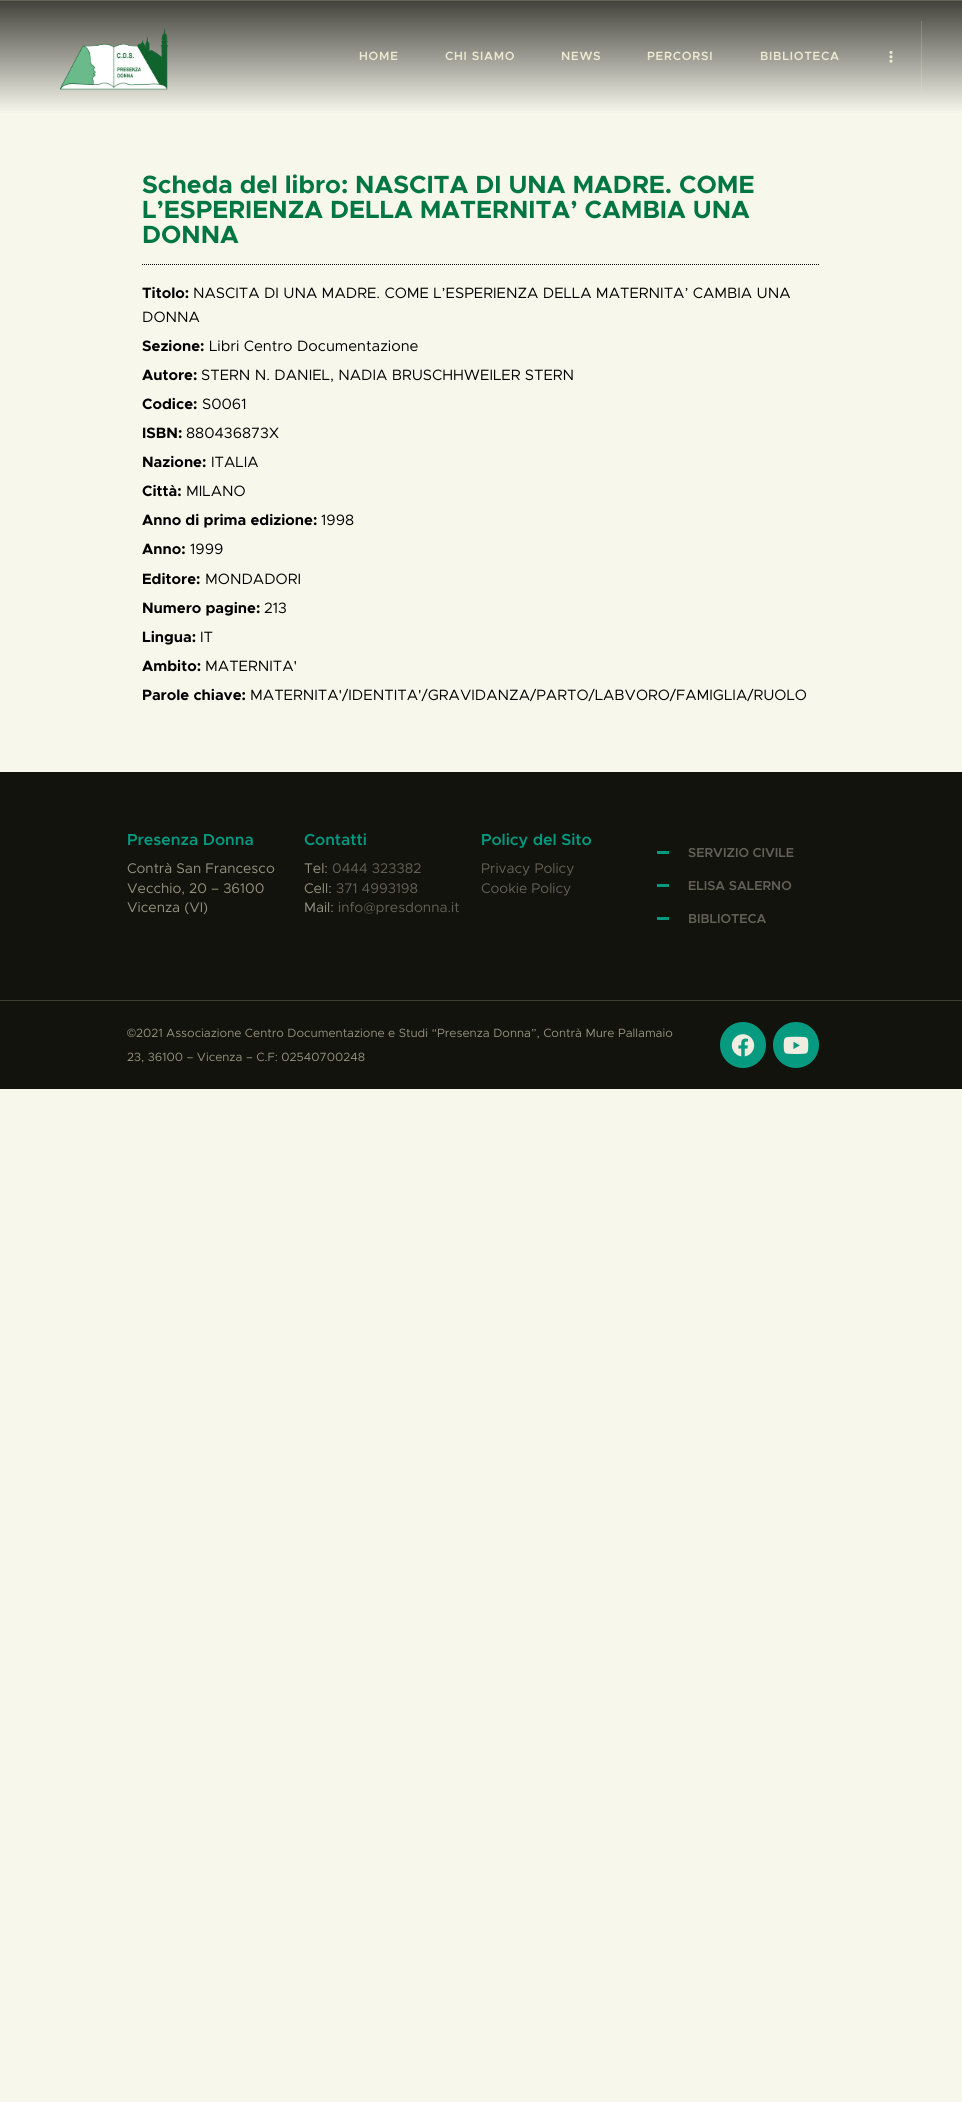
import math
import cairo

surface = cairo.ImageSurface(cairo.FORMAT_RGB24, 962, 2102)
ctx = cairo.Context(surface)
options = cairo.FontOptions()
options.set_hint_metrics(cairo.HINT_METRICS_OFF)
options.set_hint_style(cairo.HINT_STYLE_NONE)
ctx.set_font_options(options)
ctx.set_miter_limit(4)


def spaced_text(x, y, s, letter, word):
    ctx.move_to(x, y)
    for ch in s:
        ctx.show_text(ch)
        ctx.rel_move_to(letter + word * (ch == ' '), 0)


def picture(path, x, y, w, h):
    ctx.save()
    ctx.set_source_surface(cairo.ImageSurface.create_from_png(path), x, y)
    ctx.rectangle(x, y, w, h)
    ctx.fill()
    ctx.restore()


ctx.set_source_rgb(0.969, 0.965, 0.925)
ctx.paint()
gradient = cairo.LinearGradient(481, 113, 481, 0)
gradient.add_color_stop_rgba(0, 0.969, 0.965, 0.925, 1)
gradient.add_color_stop_rgba(1, 0.255, 0.251, 0.227, 1)
ctx.set_source(gradient)
ctx.rectangle(0, 1, 962, 110)
ctx.fill()
gradient = cairo.LinearGradient(481, 113, 481, 0)
gradient.add_color_stop_rgba(0, 0.961, 0.953, 0.902, 1)
gradient.add_color_stop_rgba(1, 0.388, 0.384, 0.345, 1)
ctx.set_source(gradient)
ctx.rectangle(921, 21, 1, 71)
ctx.fill()
ctx.set_source_rgb(0.392, 0.388, 0.349)
ctx.rectangle(0, 0, 962, 1)
ctx.fill()
ctx.set_source_rgb(0.957, 0.953, 0.898)
ctx.rectangle(0, 112, 962, 1)
ctx.fill()
picture("img1.png", 60, 27, 108, 63)
ctx.select_font_face("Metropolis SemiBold")
ctx.set_font_size(12)
ctx.set_source_rgb(0.922, 0.914, 0.812)
spaced_text(359, 60, "HOME", 0.75, 0)
spaced_text(445, 60, "CHI SIAMO", 0.75, 0)
spaced_text(561, 60, "NEWS", 0.75, 0)
spaced_text(647, 60, "PERCORSI", 0.75, 0)
spaced_text(760, 60, "BIBLIOTECA", 0.75, 0)
picture("img2.png", 889, 50, 4, 13)
ctx.select_font_face("Metropolis", cairo.FONT_SLANT_NORMAL, cairo.FONT_WEIGHT_BOLD)
ctx.set_font_size(25)
ctx.set_source_rgb(0, 0.467, 0.259)
ctx.move_to(142, 193)
ctx.show_text("Scheda del libro: NASCITA DI UNA MADRE. COME")
ctx.move_to(142, 218)
ctx.show_text("L’ESPERIENZA DELLA MATERNITA’ CAMBIA UNA")
ctx.move_to(142, 243)
ctx.show_text("DONNA")
ctx.new_path()
ctx.move_to(142, 264.5)
ctx.line_to(820, 264.5)
ctx.set_source_rgb(0, 0, 0)
ctx.set_line_width(1)
ctx.set_dash([1, 1])
ctx.stroke()
ctx.set_font_size(15)
ctx.move_to(142, 298)
ctx.show_text("Titolo:")
ctx.select_font_face("Metropolis")
ctx.move_to(193, 298)
ctx.show_text("NASCITA DI UNA MADRE. COME L’ESPERIENZA DELLA MATERNITA’ CAMBIA UNA")
ctx.move_to(142, 322)
ctx.show_text("DONNA")
ctx.select_font_face("Metropolis", cairo.FONT_SLANT_NORMAL, cairo.FONT_WEIGHT_BOLD)
ctx.move_to(142, 351)
ctx.show_text("Sezione:")
ctx.select_font_face("Metropolis")
ctx.move_to(209, 351)
ctx.show_text("Libri Centro Documentazione")
ctx.select_font_face("Metropolis", cairo.FONT_SLANT_NORMAL, cairo.FONT_WEIGHT_BOLD)
ctx.move_to(142, 380)
ctx.show_text("Autore:")
ctx.select_font_face("Metropolis")
ctx.move_to(201, 380)
ctx.show_text("STERN N. DANIEL, NADIA BRUSCHHWEILER STERN")
ctx.select_font_face("Metropolis", cairo.FONT_SLANT_NORMAL, cairo.FONT_WEIGHT_BOLD)
ctx.move_to(142, 409)
ctx.show_text("Codice:")
ctx.select_font_face("Metropolis")
ctx.move_to(202, 409)
ctx.show_text("S0061")
ctx.select_font_face("Metropolis", cairo.FONT_SLANT_NORMAL, cairo.FONT_WEIGHT_BOLD)
ctx.move_to(142, 438)
ctx.show_text("ISBN:")
ctx.select_font_face("Metropolis")
ctx.move_to(186, 438)
ctx.show_text("880436873X")
ctx.select_font_face("Metropolis", cairo.FONT_SLANT_NORMAL, cairo.FONT_WEIGHT_BOLD)
ctx.move_to(142, 467)
ctx.show_text("Nazione:")
ctx.select_font_face("Metropolis")
ctx.move_to(211, 467)
ctx.show_text("ITALIA")
ctx.select_font_face("Metropolis", cairo.FONT_SLANT_NORMAL, cairo.FONT_WEIGHT_BOLD)
ctx.move_to(142, 496)
ctx.show_text("Città:")
ctx.select_font_face("Metropolis")
ctx.move_to(186, 496)
ctx.show_text("MILANO")
ctx.select_font_face("Metropolis", cairo.FONT_SLANT_NORMAL, cairo.FONT_WEIGHT_BOLD)
ctx.move_to(142, 525)
ctx.show_text("Anno di prima edizione:")
ctx.select_font_face("Metropolis")
ctx.move_to(321, 525)
ctx.show_text("1998")
ctx.select_font_face("Metropolis", cairo.FONT_SLANT_NORMAL, cairo.FONT_WEIGHT_BOLD)
ctx.move_to(142, 554)
ctx.show_text("Anno:")
ctx.select_font_face("Metropolis")
ctx.move_to(190, 554)
ctx.show_text("1999")
ctx.select_font_face("Metropolis", cairo.FONT_SLANT_NORMAL, cairo.FONT_WEIGHT_BOLD)
ctx.move_to(142, 584)
ctx.show_text("Editore:")
ctx.select_font_face("Metropolis")
ctx.move_to(205, 584)
ctx.show_text("MONDADORI")
ctx.select_font_face("Metropolis", cairo.FONT_SLANT_NORMAL, cairo.FONT_WEIGHT_BOLD)
ctx.move_to(142, 613)
ctx.show_text("Numero pagine:")
ctx.select_font_face("Metropolis")
ctx.move_to(264, 613)
ctx.show_text("213")
ctx.select_font_face("Metropolis", cairo.FONT_SLANT_NORMAL, cairo.FONT_WEIGHT_BOLD)
ctx.move_to(142, 642)
ctx.show_text("Lingua:")
ctx.select_font_face("Metropolis")
ctx.move_to(200, 642)
ctx.show_text("IT")
ctx.select_font_face("Metropolis", cairo.FONT_SLANT_NORMAL, cairo.FONT_WEIGHT_BOLD)
ctx.move_to(142, 671)
ctx.show_text("Ambito:")
ctx.select_font_face("Metropolis")
ctx.move_to(205, 671)
ctx.show_text("MATERNITA'")
ctx.select_font_face("Metropolis", cairo.FONT_SLANT_NORMAL, cairo.FONT_WEIGHT_BOLD)
ctx.move_to(142, 700)
ctx.show_text("Parole chiave:")
ctx.select_font_face("Metropolis")
ctx.move_to(250, 700)
ctx.show_text("MATERNITA'/IDENTITA'/GRAVIDANZA/PARTO/LABVORO/FAMIGLIA/RUOLO")
ctx.set_source_rgb(0.075, 0.075, 0.051)
ctx.rectangle(0, 772, 962, 228)
ctx.fill()
ctx.select_font_face("Metropolis SemiBold")
ctx.set_font_size(16)
ctx.set_source_rgb(0, 0.604, 0.502)
ctx.move_to(127, 845)
ctx.show_text("Presenza Donna")
ctx.select_font_face("Metropolis")
ctx.set_font_size(14)
ctx.set_source_rgb(0.58, 0.576, 0.502)
ctx.move_to(127, 873)
ctx.show_text("Contrà San Francesco")
ctx.move_to(127, 893)
ctx.show_text("Vecchio, 20 – 36100")
ctx.move_to(127, 912)
ctx.show_text("Vicenza (VI)")
ctx.select_font_face("Metropolis SemiBold")
ctx.set_font_size(16)
ctx.set_source_rgb(0, 0.604, 0.502)
ctx.move_to(304, 845)
ctx.show_text("Contatti")
ctx.select_font_face("Metropolis")
ctx.set_font_size(14)
ctx.set_source_rgb(0.58, 0.576, 0.502)
ctx.move_to(304, 873)
ctx.show_text("Tel:")
ctx.set_source_rgb(0.384, 0.38, 0.341)
ctx.move_to(332, 873)
ctx.show_text("0444 323382")
ctx.set_source_rgb(0.58, 0.576, 0.502)
ctx.move_to(304, 893)
ctx.show_text("Cell:")
ctx.set_source_rgb(0.384, 0.38, 0.341)
ctx.move_to(336, 893)
ctx.show_text("371 4993198")
ctx.set_source_rgb(0.58, 0.576, 0.502)
ctx.move_to(304, 912)
ctx.show_text("Mail:")
ctx.set_source_rgb(0.384, 0.38, 0.341)
ctx.move_to(338, 912)
ctx.show_text("info@presdonna.it")
ctx.select_font_face("Metropolis SemiBold")
ctx.set_font_size(16)
ctx.set_source_rgb(0, 0.604, 0.502)
ctx.move_to(481, 845)
ctx.show_text("Policy del Sito")
ctx.select_font_face("Metropolis")
ctx.set_font_size(14)
ctx.set_source_rgb(0.384, 0.38, 0.341)
ctx.move_to(481, 873)
ctx.show_text("Privacy Policy")
ctx.move_to(481, 893)
ctx.show_text("Cookie Policy")
ctx.set_source_rgb(0, 0.604, 0.502)
ctx.rectangle(657, 851, 12, 3)
ctx.fill()
ctx.select_font_face("Metropolis SemiBold")
ctx.set_font_size(13)
ctx.set_source_rgb(0.384, 0.38, 0.341)
ctx.move_to(688, 857)
ctx.show_text("SERVIZIO CIVILE")
ctx.set_source_rgb(0, 0.604, 0.502)
ctx.rectangle(657, 884, 12, 3)
ctx.fill()
ctx.set_source_rgb(0.384, 0.38, 0.341)
ctx.move_to(688, 890)
ctx.show_text("ELISA SALERNO")
ctx.set_source_rgb(0, 0.604, 0.502)
ctx.rectangle(657, 917, 12, 3)
ctx.fill()
ctx.set_source_rgb(0.384, 0.38, 0.341)
ctx.move_to(688, 923)
ctx.show_text("BIBLIOTECA")
ctx.set_source_rgb(0.075, 0.075, 0.051)
ctx.rectangle(0, 1001, 962, 88)
ctx.fill()
ctx.set_source_rgb(0.243, 0.243, 0.204)
ctx.rectangle(0, 1000, 962, 1)
ctx.fill()
ctx.select_font_face("Liberation Sans")
ctx.set_font_size(12)
ctx.set_source_rgb(0.58, 0.576, 0.502)
ctx.move_to(127, 1037)
ctx.show_text("©")
ctx.select_font_face("Metropolis")
ctx.move_to(136, 1037)
ctx.show_text("2021 Associazione Centro Documentazione e Studi “Presenza Donna”, Contrà Mure Pallamaio")
ctx.move_to(127, 1061)
ctx.show_text("23, 36100 – Vicenza – C.F: 02540700248")
ctx.set_source_rgb(0.024, 0.604, 0.502)
ctx.new_path()
ctx.arc(743, 1045, 23, 0, 2 * math.pi)
ctx.fill()
picture("img3.png", 731, 1034, 24, 23)
ctx.arc(796, 1045, 23, 0, 2 * math.pi)
ctx.fill()
picture("img4.png", 783, 1036, 26, 18)
surface.write_to_png("page.png")
